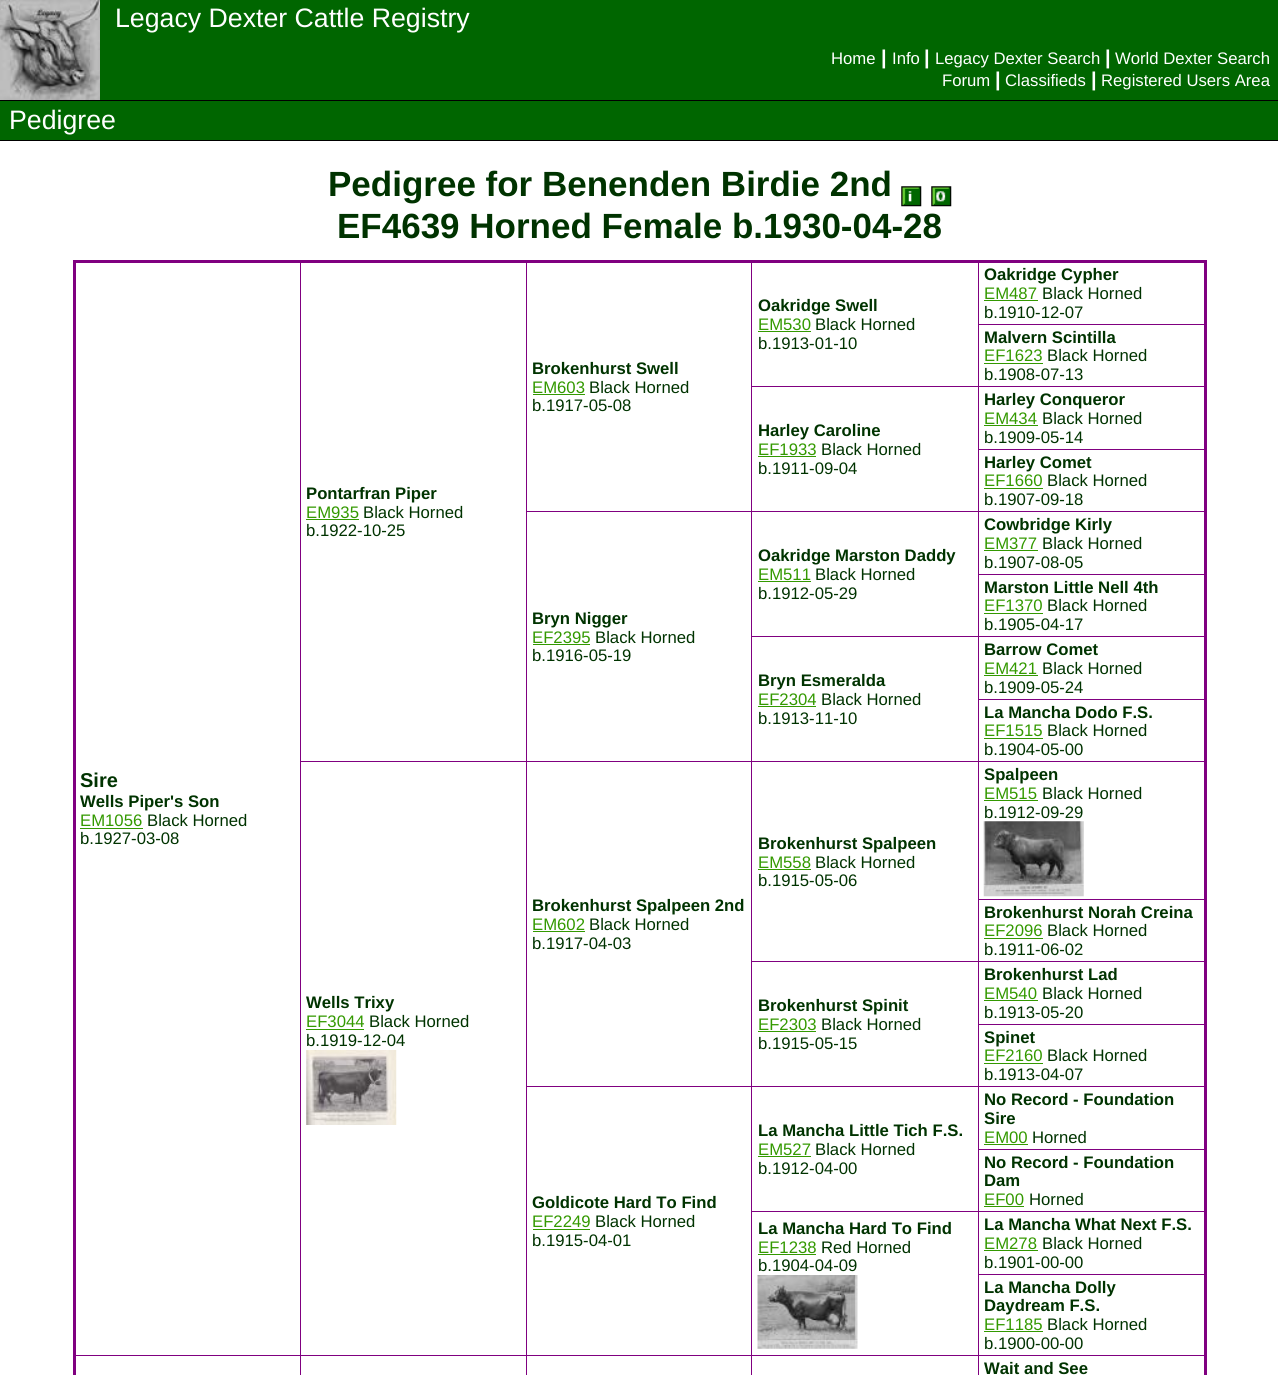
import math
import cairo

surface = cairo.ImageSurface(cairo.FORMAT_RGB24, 1278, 1375)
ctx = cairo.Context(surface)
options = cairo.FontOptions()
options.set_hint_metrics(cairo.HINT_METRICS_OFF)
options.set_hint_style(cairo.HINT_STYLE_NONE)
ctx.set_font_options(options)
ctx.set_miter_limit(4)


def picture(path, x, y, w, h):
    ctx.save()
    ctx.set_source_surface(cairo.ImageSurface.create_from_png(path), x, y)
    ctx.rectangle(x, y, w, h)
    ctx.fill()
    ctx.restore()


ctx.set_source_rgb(1, 1, 1)
ctx.paint()
picture("img1.png", 0, 0, 100, 100)
ctx.set_source_rgb(0, 0.4, 0)
ctx.rectangle(100, 0, 1178, 100)
ctx.fill()
ctx.select_font_face("Liberation Sans")
ctx.set_font_size(26.7)
ctx.set_source_rgb(1, 1, 1)
ctx.move_to(115, 27)
ctx.show_text("Legacy Dexter Cattle Registry")
ctx.set_source_rgb(0, 0, 0)
ctx.rectangle(0, 100, 1278, 1)
ctx.fill()
ctx.set_font_size(16.7)
ctx.set_source_rgb(1, 1, 1)
ctx.move_to(831, 64)
ctx.show_text("Home")
ctx.select_font_face("Liberation Sans", cairo.FONT_SLANT_NORMAL, cairo.FONT_WEIGHT_BOLD)
ctx.set_font_size(20)
ctx.move_to(881, 64)
ctx.show_text("|")
ctx.select_font_face("Liberation Sans")
ctx.set_font_size(16.7)
ctx.move_to(892, 64)
ctx.show_text("Info")
ctx.select_font_face("Liberation Sans", cairo.FONT_SLANT_NORMAL, cairo.FONT_WEIGHT_BOLD)
ctx.set_font_size(20)
ctx.move_to(924, 64)
ctx.show_text("|")
ctx.select_font_face("Liberation Sans")
ctx.set_font_size(16.7)
ctx.move_to(935, 64)
ctx.show_text("Legacy Dexter Search")
ctx.select_font_face("Liberation Sans", cairo.FONT_SLANT_NORMAL, cairo.FONT_WEIGHT_BOLD)
ctx.set_font_size(20)
ctx.move_to(1105, 64)
ctx.show_text("|")
ctx.select_font_face("Liberation Sans")
ctx.set_font_size(16.7)
ctx.move_to(1115, 64)
ctx.show_text("World Dexter Search")
ctx.move_to(942, 86)
ctx.show_text("Forum")
ctx.select_font_face("Liberation Sans", cairo.FONT_SLANT_NORMAL, cairo.FONT_WEIGHT_BOLD)
ctx.set_font_size(20)
ctx.move_to(995, 86)
ctx.show_text("|")
ctx.select_font_face("Liberation Sans")
ctx.set_font_size(16.7)
ctx.move_to(1005, 86)
ctx.show_text("Classifieds")
ctx.select_font_face("Liberation Sans", cairo.FONT_SLANT_NORMAL, cairo.FONT_WEIGHT_BOLD)
ctx.set_font_size(20)
ctx.move_to(1091, 86)
ctx.show_text("|")
ctx.select_font_face("Liberation Sans")
ctx.set_font_size(16.7)
ctx.move_to(1101, 86)
ctx.show_text("Registered Users Area")
ctx.set_source_rgb(0, 0.4, 0)
ctx.rectangle(0, 101, 1278, 39)
ctx.fill()
ctx.set_source_rgb(0, 0, 0)
ctx.rectangle(0, 140, 1278, 1)
ctx.fill()
ctx.set_font_size(26.7)
ctx.set_source_rgb(1, 1, 1)
ctx.move_to(9, 129)
ctx.show_text("Pedigree")
ctx.select_font_face("Liberation Sans", cairo.FONT_SLANT_NORMAL, cairo.FONT_WEIGHT_BOLD)
ctx.set_font_size(35)
ctx.set_source_rgb(0, 0.2, 0)
ctx.move_to(328, 196)
ctx.show_text("Pedigree for Benenden Birdie 2nd")
picture("img2.png", 901, 186, 21, 21)
picture("img3.png", 931, 186, 21, 21)
ctx.move_to(337, 238)
ctx.show_text("EF4639 Horned Female b.1930-04-28")
ctx.set_source_rgb(0.502, 0, 0.502)
ctx.rectangle(978, 324, 227, 1)
ctx.fill()
ctx.rectangle(978, 386, 227, 1)
ctx.fill()
ctx.rectangle(978, 449, 227, 1)
ctx.fill()
ctx.rectangle(978, 511, 227, 1)
ctx.fill()
ctx.rectangle(978, 574, 227, 1)
ctx.fill()
ctx.rectangle(978, 636, 227, 1)
ctx.fill()
ctx.rectangle(978, 699, 227, 1)
ctx.fill()
ctx.rectangle(978, 761, 227, 1)
ctx.fill()
ctx.rectangle(978, 899, 227, 1)
ctx.fill()
ctx.rectangle(978, 961, 227, 1)
ctx.fill()
ctx.rectangle(978, 1024, 227, 1)
ctx.fill()
ctx.rectangle(978, 1086, 227, 1)
ctx.fill()
ctx.rectangle(978, 1149, 227, 1)
ctx.fill()
ctx.rectangle(978, 1211, 227, 1)
ctx.fill()
ctx.rectangle(978, 1274, 227, 1)
ctx.fill()
ctx.rectangle(978, 1355, 227, 1)
ctx.fill()
ctx.rectangle(978, 1355, 1, 20)
ctx.fill()
ctx.rectangle(751, 1355, 228, 1)
ctx.fill()
ctx.rectangle(978, 1274, 1, 82)
ctx.fill()
ctx.rectangle(978, 1211, 1, 64)
ctx.fill()
ctx.rectangle(751, 1211, 228, 1)
ctx.fill()
ctx.rectangle(978, 1149, 1, 64)
ctx.fill()
ctx.rectangle(978, 1086, 1, 64)
ctx.fill()
ctx.rectangle(751, 1086, 228, 1)
ctx.fill()
ctx.rectangle(978, 1024, 1, 64)
ctx.fill()
ctx.rectangle(978, 961, 1, 64)
ctx.fill()
ctx.rectangle(751, 961, 228, 1)
ctx.fill()
ctx.rectangle(978, 899, 1, 64)
ctx.fill()
ctx.rectangle(978, 761, 1, 139)
ctx.fill()
ctx.rectangle(751, 761, 228, 1)
ctx.fill()
ctx.rectangle(978, 699, 1, 64)
ctx.fill()
ctx.rectangle(978, 636, 1, 64)
ctx.fill()
ctx.rectangle(751, 636, 228, 1)
ctx.fill()
ctx.rectangle(978, 574, 1, 64)
ctx.fill()
ctx.rectangle(978, 511, 1, 64)
ctx.fill()
ctx.rectangle(751, 511, 228, 1)
ctx.fill()
ctx.rectangle(978, 449, 1, 64)
ctx.fill()
ctx.rectangle(978, 386, 1, 64)
ctx.fill()
ctx.rectangle(751, 386, 228, 1)
ctx.fill()
ctx.rectangle(978, 261, 1, 127)
ctx.fill()
ctx.rectangle(751, 1355, 1, 20)
ctx.fill()
ctx.rectangle(526, 1355, 227, 1)
ctx.fill()
ctx.rectangle(751, 1211, 1, 145)
ctx.fill()
ctx.rectangle(751, 1086, 1, 127)
ctx.fill()
ctx.rectangle(526, 1086, 227, 1)
ctx.fill()
ctx.rectangle(751, 961, 1, 127)
ctx.fill()
ctx.rectangle(751, 761, 1, 202)
ctx.fill()
ctx.rectangle(526, 761, 227, 1)
ctx.fill()
ctx.rectangle(751, 636, 1, 127)
ctx.fill()
ctx.rectangle(751, 511, 1, 127)
ctx.fill()
ctx.rectangle(526, 511, 227, 1)
ctx.fill()
ctx.rectangle(751, 261, 1, 252)
ctx.fill()
ctx.rectangle(526, 1355, 1, 20)
ctx.fill()
ctx.rectangle(300, 1355, 228, 1)
ctx.fill()
ctx.rectangle(526, 1086, 1, 270)
ctx.fill()
ctx.rectangle(526, 761, 1, 327)
ctx.fill()
ctx.rectangle(300, 761, 228, 1)
ctx.fill()
ctx.rectangle(526, 261, 1, 502)
ctx.fill()
ctx.rectangle(300, 1355, 1, 20)
ctx.fill()
ctx.rectangle(74, 1355, 227, 1)
ctx.fill()
ctx.rectangle(300, 261, 1, 1095)
ctx.fill()
ctx.rectangle(73, 260, 1133, 3)
ctx.fill()
ctx.rectangle(1204, 260, 3, 1115)
ctx.fill()
ctx.rectangle(73, 260, 3, 1115)
ctx.fill()
ctx.set_font_size(16.7)
ctx.set_source_rgb(0, 0.2, 0)
ctx.move_to(758, 311)
ctx.show_text("Oakridge Swell")
ctx.select_font_face("Liberation Sans")
ctx.set_source_rgb(0.2, 0.6, 0)
ctx.move_to(758, 330)
ctx.show_text("EM530")
ctx.rectangle(758, 331, 53, 1)
ctx.fill()
ctx.set_source_rgb(0, 0.2, 0)
ctx.move_to(815, 330)
ctx.show_text("Black Horned")
ctx.move_to(758, 349)
ctx.show_text("b.1913-01-10")
ctx.select_font_face("Liberation Sans", cairo.FONT_SLANT_NORMAL, cairo.FONT_WEIGHT_BOLD)
ctx.move_to(984, 280)
ctx.show_text("Oakridge Cypher")
ctx.select_font_face("Liberation Sans")
ctx.set_source_rgb(0.2, 0.6, 0)
ctx.move_to(984, 299)
ctx.show_text("EM487")
ctx.rectangle(984, 300, 54, 1)
ctx.fill()
ctx.set_source_rgb(0, 0.2, 0)
ctx.move_to(1042, 299)
ctx.show_text("Black Horned")
ctx.move_to(984, 318)
ctx.show_text("b.1910-12-07")
ctx.select_font_face("Liberation Sans", cairo.FONT_SLANT_NORMAL, cairo.FONT_WEIGHT_BOLD)
ctx.move_to(532, 374)
ctx.show_text("Brokenhurst Swell")
ctx.select_font_face("Liberation Sans")
ctx.set_source_rgb(0.2, 0.6, 0)
ctx.move_to(532, 393)
ctx.show_text("EM603")
ctx.rectangle(533, 394, 52, 1)
ctx.fill()
ctx.set_source_rgb(0, 0.2, 0)
ctx.move_to(589, 393)
ctx.show_text("Black Horned")
ctx.move_to(532, 411)
ctx.show_text("b.1917-05-08")
ctx.select_font_face("Liberation Sans", cairo.FONT_SLANT_NORMAL, cairo.FONT_WEIGHT_BOLD)
ctx.move_to(306, 499)
ctx.show_text("Pontarfran Piper")
ctx.select_font_face("Liberation Sans")
ctx.set_source_rgb(0.2, 0.6, 0)
ctx.move_to(306, 518)
ctx.show_text("EM935")
ctx.rectangle(306, 519, 53, 1)
ctx.fill()
ctx.set_source_rgb(0, 0.2, 0)
ctx.move_to(363, 518)
ctx.show_text("Black Horned")
ctx.move_to(306, 536)
ctx.show_text("b.1922-10-25")
ctx.select_font_face("Liberation Sans", cairo.FONT_SLANT_NORMAL, cairo.FONT_WEIGHT_BOLD)
ctx.set_font_size(20)
ctx.move_to(80, 787)
ctx.show_text("Sire")
ctx.set_font_size(16.7)
ctx.move_to(80, 807)
ctx.show_text("Wells Piper's Son")
ctx.select_font_face("Liberation Sans")
ctx.set_source_rgb(0.2, 0.6, 0)
ctx.move_to(80, 826)
ctx.show_text("EM1056")
ctx.rectangle(80, 828, 63, 1)
ctx.fill()
ctx.set_source_rgb(0, 0.2, 0)
ctx.move_to(147, 826)
ctx.show_text("Black Horned")
ctx.move_to(80, 844)
ctx.show_text("b.1927-03-08")
ctx.select_font_face("Liberation Sans", cairo.FONT_SLANT_NORMAL, cairo.FONT_WEIGHT_BOLD)
ctx.move_to(984, 343)
ctx.show_text("Malvern Scintilla")
ctx.select_font_face("Liberation Sans")
ctx.set_source_rgb(0.2, 0.6, 0)
ctx.move_to(984, 361)
ctx.show_text("EF1623")
ctx.rectangle(984, 363, 59, 1)
ctx.fill()
ctx.set_source_rgb(0, 0.2, 0)
ctx.move_to(1047, 361)
ctx.show_text("Black Horned")
ctx.move_to(984, 380)
ctx.show_text("b.1908-07-13")
ctx.select_font_face("Liberation Sans", cairo.FONT_SLANT_NORMAL, cairo.FONT_WEIGHT_BOLD)
ctx.move_to(758, 436)
ctx.show_text("Harley Caroline")
ctx.select_font_face("Liberation Sans")
ctx.set_source_rgb(0.2, 0.6, 0)
ctx.move_to(758, 455)
ctx.show_text("EF1933")
ctx.rectangle(758, 456, 58, 1)
ctx.fill()
ctx.set_source_rgb(0, 0.2, 0)
ctx.move_to(821, 455)
ctx.show_text("Black Horned")
ctx.move_to(758, 474)
ctx.show_text("b.1911-09-04")
ctx.select_font_face("Liberation Sans", cairo.FONT_SLANT_NORMAL, cairo.FONT_WEIGHT_BOLD)
ctx.move_to(984, 405)
ctx.show_text("Harley Conqueror")
ctx.select_font_face("Liberation Sans")
ctx.set_source_rgb(0.2, 0.6, 0)
ctx.move_to(984, 424)
ctx.show_text("EM434")
ctx.rectangle(984, 425, 54, 1)
ctx.fill()
ctx.set_source_rgb(0, 0.2, 0)
ctx.move_to(1042, 424)
ctx.show_text("Black Horned")
ctx.move_to(984, 443)
ctx.show_text("b.1909-05-14")
ctx.select_font_face("Liberation Sans", cairo.FONT_SLANT_NORMAL, cairo.FONT_WEIGHT_BOLD)
ctx.move_to(984, 468)
ctx.show_text("Harley Comet")
ctx.select_font_face("Liberation Sans")
ctx.set_source_rgb(0.2, 0.6, 0)
ctx.move_to(984, 486)
ctx.show_text("EF1660")
ctx.rectangle(984, 488, 59, 1)
ctx.fill()
ctx.set_source_rgb(0, 0.2, 0)
ctx.move_to(1047, 486)
ctx.show_text("Black Horned")
ctx.move_to(984, 505)
ctx.show_text("b.1907-09-18")
ctx.select_font_face("Liberation Sans", cairo.FONT_SLANT_NORMAL, cairo.FONT_WEIGHT_BOLD)
ctx.move_to(758, 561)
ctx.show_text("Oakridge Marston Daddy")
ctx.select_font_face("Liberation Sans")
ctx.set_source_rgb(0.2, 0.6, 0)
ctx.move_to(758, 580)
ctx.show_text("EM511")
ctx.rectangle(758, 581, 53, 1)
ctx.fill()
ctx.set_source_rgb(0, 0.2, 0)
ctx.move_to(815, 580)
ctx.show_text("Black Horned")
ctx.move_to(758, 599)
ctx.show_text("b.1912-05-29")
ctx.select_font_face("Liberation Sans", cairo.FONT_SLANT_NORMAL, cairo.FONT_WEIGHT_BOLD)
ctx.move_to(984, 530)
ctx.show_text("Cowbridge Kirly")
ctx.select_font_face("Liberation Sans")
ctx.set_source_rgb(0.2, 0.6, 0)
ctx.move_to(984, 549)
ctx.show_text("EM377")
ctx.rectangle(984, 550, 54, 1)
ctx.fill()
ctx.set_source_rgb(0, 0.2, 0)
ctx.move_to(1042, 549)
ctx.show_text("Black Horned")
ctx.move_to(984, 568)
ctx.show_text("b.1907-08-05")
ctx.select_font_face("Liberation Sans", cairo.FONT_SLANT_NORMAL, cairo.FONT_WEIGHT_BOLD)
ctx.move_to(532, 624)
ctx.show_text("Bryn Nigger")
ctx.select_font_face("Liberation Sans")
ctx.set_source_rgb(0.2, 0.6, 0)
ctx.move_to(532, 643)
ctx.show_text("EF2395")
ctx.rectangle(533, 644, 57, 1)
ctx.fill()
ctx.set_source_rgb(0, 0.2, 0)
ctx.move_to(595, 643)
ctx.show_text("Black Horned")
ctx.move_to(532, 661)
ctx.show_text("b.1916-05-19")
ctx.select_font_face("Liberation Sans", cairo.FONT_SLANT_NORMAL, cairo.FONT_WEIGHT_BOLD)
ctx.move_to(984, 593)
ctx.show_text("Marston Little Nell 4th")
ctx.select_font_face("Liberation Sans")
ctx.set_source_rgb(0.2, 0.6, 0)
ctx.move_to(984, 611)
ctx.show_text("EF1370")
ctx.rectangle(984, 613, 59, 1)
ctx.fill()
ctx.set_source_rgb(0, 0.2, 0)
ctx.move_to(1047, 611)
ctx.show_text("Black Horned")
ctx.move_to(984, 630)
ctx.show_text("b.1905-04-17")
ctx.select_font_face("Liberation Sans", cairo.FONT_SLANT_NORMAL, cairo.FONT_WEIGHT_BOLD)
ctx.move_to(758, 686)
ctx.show_text("Bryn Esmeralda")
ctx.select_font_face("Liberation Sans")
ctx.set_source_rgb(0.2, 0.6, 0)
ctx.move_to(758, 705)
ctx.show_text("EF2304")
ctx.rectangle(758, 706, 58, 1)
ctx.fill()
ctx.set_source_rgb(0, 0.2, 0)
ctx.move_to(821, 705)
ctx.show_text("Black Horned")
ctx.move_to(758, 724)
ctx.show_text("b.1913-11-10")
ctx.select_font_face("Liberation Sans", cairo.FONT_SLANT_NORMAL, cairo.FONT_WEIGHT_BOLD)
ctx.move_to(984, 655)
ctx.show_text("Barrow Comet")
ctx.select_font_face("Liberation Sans")
ctx.set_source_rgb(0.2, 0.6, 0)
ctx.move_to(984, 674)
ctx.show_text("EM421")
ctx.rectangle(984, 675, 54, 1)
ctx.fill()
ctx.set_source_rgb(0, 0.2, 0)
ctx.move_to(1042, 674)
ctx.show_text("Black Horned")
ctx.move_to(984, 693)
ctx.show_text("b.1909-05-24")
ctx.select_font_face("Liberation Sans", cairo.FONT_SLANT_NORMAL, cairo.FONT_WEIGHT_BOLD)
ctx.move_to(984, 718)
ctx.show_text("La Mancha Dodo F.S.")
ctx.select_font_face("Liberation Sans")
ctx.set_source_rgb(0.2, 0.6, 0)
ctx.move_to(984, 736)
ctx.show_text("EF1515")
ctx.rectangle(984, 738, 59, 1)
ctx.fill()
ctx.set_source_rgb(0, 0.2, 0)
ctx.move_to(1047, 736)
ctx.show_text("Black Horned")
ctx.move_to(984, 755)
ctx.show_text("b.1904-05-00")
ctx.select_font_face("Liberation Sans", cairo.FONT_SLANT_NORMAL, cairo.FONT_WEIGHT_BOLD)
ctx.move_to(984, 780)
ctx.show_text("Spalpeen")
ctx.select_font_face("Liberation Sans")
ctx.set_source_rgb(0.2, 0.6, 0)
ctx.move_to(984, 799)
ctx.show_text("EM515")
ctx.rectangle(984, 800, 54, 1)
ctx.fill()
ctx.set_source_rgb(0, 0.2, 0)
ctx.move_to(1042, 799)
ctx.show_text("Black Horned")
ctx.move_to(984, 818)
ctx.show_text("b.1912-09-29")
picture("img4.png", 983, 821, 101, 76)
ctx.select_font_face("Liberation Sans", cairo.FONT_SLANT_NORMAL, cairo.FONT_WEIGHT_BOLD)
ctx.move_to(758, 849)
ctx.show_text("Brokenhurst Spalpeen")
ctx.select_font_face("Liberation Sans")
ctx.set_source_rgb(0.2, 0.6, 0)
ctx.move_to(758, 868)
ctx.show_text("EM558")
ctx.rectangle(758, 869, 53, 1)
ctx.fill()
ctx.set_source_rgb(0, 0.2, 0)
ctx.move_to(815, 868)
ctx.show_text("Black Horned")
ctx.move_to(758, 886)
ctx.show_text("b.1915-05-06")
ctx.select_font_face("Liberation Sans", cairo.FONT_SLANT_NORMAL, cairo.FONT_WEIGHT_BOLD)
ctx.move_to(532, 911)
ctx.show_text("Brokenhurst Spalpeen 2nd")
ctx.select_font_face("Liberation Sans")
ctx.set_source_rgb(0.2, 0.6, 0)
ctx.move_to(532, 930)
ctx.show_text("EM602")
ctx.rectangle(533, 931, 52, 1)
ctx.fill()
ctx.set_source_rgb(0, 0.2, 0)
ctx.move_to(589, 930)
ctx.show_text("Black Horned")
ctx.move_to(532, 949)
ctx.show_text("b.1917-04-03")
ctx.select_font_face("Liberation Sans", cairo.FONT_SLANT_NORMAL, cairo.FONT_WEIGHT_BOLD)
ctx.move_to(306, 1008)
ctx.show_text("Wells Trixy")
ctx.select_font_face("Liberation Sans")
ctx.set_source_rgb(0.2, 0.6, 0)
ctx.move_to(306, 1027)
ctx.show_text("EF3044")
ctx.rectangle(306, 1029, 58, 1)
ctx.fill()
ctx.set_source_rgb(0, 0.2, 0)
ctx.move_to(369, 1027)
ctx.show_text("Black Horned")
ctx.move_to(306, 1046)
ctx.show_text("b.1919-12-04")
picture("img5.png", 306, 1050, 91, 75)
ctx.select_font_face("Liberation Sans", cairo.FONT_SLANT_NORMAL, cairo.FONT_WEIGHT_BOLD)
ctx.move_to(984, 918)
ctx.show_text("Brokenhurst Norah Creina")
ctx.select_font_face("Liberation Sans")
ctx.set_source_rgb(0.2, 0.6, 0)
ctx.move_to(984, 936)
ctx.show_text("EF2096")
ctx.rectangle(984, 938, 59, 1)
ctx.fill()
ctx.set_source_rgb(0, 0.2, 0)
ctx.move_to(1047, 936)
ctx.show_text("Black Horned")
ctx.move_to(984, 955)
ctx.show_text("b.1911-06-02")
ctx.select_font_face("Liberation Sans", cairo.FONT_SLANT_NORMAL, cairo.FONT_WEIGHT_BOLD)
ctx.move_to(758, 1011)
ctx.show_text("Brokenhurst Spinit")
ctx.select_font_face("Liberation Sans")
ctx.set_source_rgb(0.2, 0.6, 0)
ctx.move_to(758, 1030)
ctx.show_text("EF2303")
ctx.rectangle(758, 1031, 58, 1)
ctx.fill()
ctx.set_source_rgb(0, 0.2, 0)
ctx.move_to(821, 1030)
ctx.show_text("Black Horned")
ctx.move_to(758, 1049)
ctx.show_text("b.1915-05-15")
ctx.select_font_face("Liberation Sans", cairo.FONT_SLANT_NORMAL, cairo.FONT_WEIGHT_BOLD)
ctx.move_to(984, 980)
ctx.show_text("Brokenhurst Lad")
ctx.select_font_face("Liberation Sans")
ctx.set_source_rgb(0.2, 0.6, 0)
ctx.move_to(984, 999)
ctx.show_text("EM540")
ctx.rectangle(984, 1000, 54, 1)
ctx.fill()
ctx.set_source_rgb(0, 0.2, 0)
ctx.move_to(1042, 999)
ctx.show_text("Black Horned")
ctx.move_to(984, 1018)
ctx.show_text("b.1913-05-20")
ctx.select_font_face("Liberation Sans", cairo.FONT_SLANT_NORMAL, cairo.FONT_WEIGHT_BOLD)
ctx.move_to(984, 1043)
ctx.show_text("Spinet")
ctx.select_font_face("Liberation Sans")
ctx.set_source_rgb(0.2, 0.6, 0)
ctx.move_to(984, 1061)
ctx.show_text("EF2160")
ctx.rectangle(984, 1063, 59, 1)
ctx.fill()
ctx.set_source_rgb(0, 0.2, 0)
ctx.move_to(1047, 1061)
ctx.show_text("Black Horned")
ctx.move_to(984, 1080)
ctx.show_text("b.1913-04-07")
ctx.select_font_face("Liberation Sans", cairo.FONT_SLANT_NORMAL, cairo.FONT_WEIGHT_BOLD)
ctx.move_to(758, 1136)
ctx.show_text("La Mancha Little Tich F.S.")
ctx.select_font_face("Liberation Sans")
ctx.set_source_rgb(0.2, 0.6, 0)
ctx.move_to(758, 1155)
ctx.show_text("EM527")
ctx.rectangle(758, 1156, 53, 1)
ctx.fill()
ctx.set_source_rgb(0, 0.2, 0)
ctx.move_to(815, 1155)
ctx.show_text("Black Horned")
ctx.move_to(758, 1174)
ctx.show_text("b.1912-04-00")
ctx.select_font_face("Liberation Sans", cairo.FONT_SLANT_NORMAL, cairo.FONT_WEIGHT_BOLD)
ctx.move_to(984, 1105)
ctx.show_text("No Record - Foundation")
ctx.move_to(984, 1124)
ctx.show_text("Sire")
ctx.select_font_face("Liberation Sans")
ctx.set_source_rgb(0.2, 0.6, 0)
ctx.move_to(984, 1143)
ctx.show_text("EM00")
ctx.rectangle(984, 1144, 44, 1)
ctx.fill()
ctx.set_source_rgb(0, 0.2, 0)
ctx.move_to(1032, 1143)
ctx.show_text("Horned")
ctx.select_font_face("Liberation Sans", cairo.FONT_SLANT_NORMAL, cairo.FONT_WEIGHT_BOLD)
ctx.move_to(532, 1208)
ctx.show_text("Goldicote Hard To Find")
ctx.select_font_face("Liberation Sans")
ctx.set_source_rgb(0.2, 0.6, 0)
ctx.move_to(532, 1227)
ctx.show_text("EF2249")
ctx.rectangle(533, 1229, 57, 1)
ctx.fill()
ctx.set_source_rgb(0, 0.2, 0)
ctx.move_to(595, 1227)
ctx.show_text("Black Horned")
ctx.move_to(532, 1246)
ctx.show_text("b.1915-04-01")
ctx.select_font_face("Liberation Sans", cairo.FONT_SLANT_NORMAL, cairo.FONT_WEIGHT_BOLD)
ctx.move_to(984, 1168)
ctx.show_text("No Record - Foundation")
ctx.move_to(984, 1186)
ctx.show_text("Dam")
ctx.select_font_face("Liberation Sans")
ctx.set_source_rgb(0.2, 0.6, 0)
ctx.move_to(984, 1205)
ctx.show_text("EF00")
ctx.rectangle(984, 1206, 40, 1)
ctx.fill()
ctx.set_source_rgb(0, 0.2, 0)
ctx.move_to(1029, 1205)
ctx.show_text("Horned")
ctx.select_font_face("Liberation Sans", cairo.FONT_SLANT_NORMAL, cairo.FONT_WEIGHT_BOLD)
ctx.move_to(758, 1234)
ctx.show_text("La Mancha Hard To Find")
ctx.select_font_face("Liberation Sans")
ctx.set_source_rgb(0.2, 0.6, 0)
ctx.move_to(758, 1253)
ctx.show_text("EF1238")
ctx.rectangle(758, 1254, 58, 1)
ctx.fill()
ctx.set_source_rgb(0, 0.2, 0)
ctx.move_to(821, 1253)
ctx.show_text("Red Horned")
ctx.move_to(758, 1271)
ctx.show_text("b.1904-04-09")
picture("img6.png", 757, 1275, 101, 74)
ctx.select_font_face("Liberation Sans", cairo.FONT_SLANT_NORMAL, cairo.FONT_WEIGHT_BOLD)
ctx.move_to(984, 1230)
ctx.show_text("La Mancha What Next F.S.")
ctx.select_font_face("Liberation Sans")
ctx.set_source_rgb(0.2, 0.6, 0)
ctx.move_to(984, 1249)
ctx.show_text("EM278")
ctx.rectangle(984, 1250, 54, 1)
ctx.fill()
ctx.set_source_rgb(0, 0.2, 0)
ctx.move_to(1042, 1249)
ctx.show_text("Black Horned")
ctx.move_to(984, 1268)
ctx.show_text("b.1901-00-00")
ctx.select_font_face("Liberation Sans", cairo.FONT_SLANT_NORMAL, cairo.FONT_WEIGHT_BOLD)
ctx.move_to(984, 1293)
ctx.show_text("La Mancha Dolly")
ctx.move_to(984, 1311)
ctx.show_text("Daydream F.S.")
ctx.select_font_face("Liberation Sans")
ctx.set_source_rgb(0.2, 0.6, 0)
ctx.move_to(984, 1330)
ctx.show_text("EF1185")
ctx.rectangle(984, 1331, 59, 1)
ctx.fill()
ctx.set_source_rgb(0, 0.2, 0)
ctx.move_to(1047, 1330)
ctx.show_text("Black Horned")
ctx.move_to(984, 1349)
ctx.show_text("b.1900-00-00")
ctx.select_font_face("Liberation Sans", cairo.FONT_SLANT_NORMAL, cairo.FONT_WEIGHT_BOLD)
ctx.move_to(984, 1374)
ctx.show_text("Wait and See")
surface.write_to_png("page.png")
